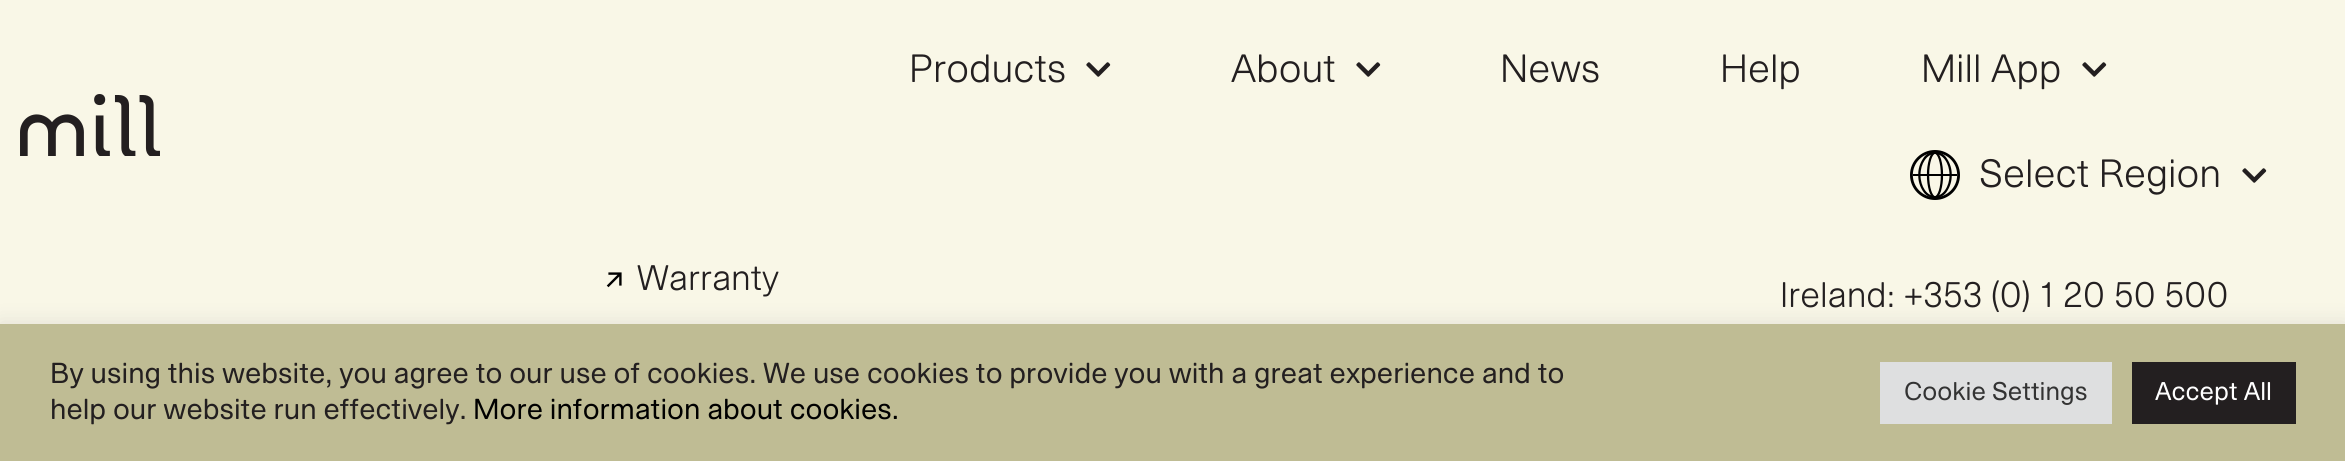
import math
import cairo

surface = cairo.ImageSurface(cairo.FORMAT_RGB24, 2345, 461)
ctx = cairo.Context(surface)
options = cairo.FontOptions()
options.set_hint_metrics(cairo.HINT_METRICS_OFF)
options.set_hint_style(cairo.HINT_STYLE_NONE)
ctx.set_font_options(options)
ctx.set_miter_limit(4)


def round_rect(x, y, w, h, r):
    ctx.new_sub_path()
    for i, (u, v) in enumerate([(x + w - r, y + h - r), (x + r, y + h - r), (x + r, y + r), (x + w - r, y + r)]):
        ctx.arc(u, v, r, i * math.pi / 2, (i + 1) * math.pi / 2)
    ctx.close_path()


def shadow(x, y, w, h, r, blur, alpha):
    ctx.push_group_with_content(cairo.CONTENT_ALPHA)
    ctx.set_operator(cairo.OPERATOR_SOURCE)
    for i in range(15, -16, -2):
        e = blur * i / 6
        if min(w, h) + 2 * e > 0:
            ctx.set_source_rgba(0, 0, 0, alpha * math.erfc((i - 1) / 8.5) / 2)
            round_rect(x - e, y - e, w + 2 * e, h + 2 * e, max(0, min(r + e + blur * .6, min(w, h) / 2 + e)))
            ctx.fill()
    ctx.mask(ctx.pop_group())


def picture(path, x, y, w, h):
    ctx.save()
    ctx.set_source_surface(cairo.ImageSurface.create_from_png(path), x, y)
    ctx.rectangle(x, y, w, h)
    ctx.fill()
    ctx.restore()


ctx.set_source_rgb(0.976, 0.965, 0.906)
ctx.paint()
picture("img1.png", 20, 94, 140, 62)
ctx.select_font_face("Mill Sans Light")
ctx.set_font_size(40)
ctx.set_source_rgb(0.137, 0.122, 0.125)
ctx.move_to(909, 82)
ctx.show_text("Products")
picture("img2.png", 1086, 62, 25, 15)
ctx.move_to(1231, 82)
ctx.show_text("About")
picture("img2.png", 1356, 62, 25, 15)
ctx.move_to(1500, 82)
ctx.show_text("News")
ctx.move_to(1720, 82)
ctx.show_text("Help")
ctx.move_to(1921, 82)
ctx.show_text("Mill App")
picture("img2.png", 2082, 62, 25, 15)
picture("img3.png", 1910, 150, 50, 50)
ctx.move_to(1979, 187)
ctx.show_text("Select Region")
picture("img2.png", 2242, 168, 25, 15)
picture("img4.png", 606, 272, 16, 16)
ctx.set_font_size(36)
ctx.move_to(637, 290)
ctx.show_text("Warranty")
ctx.move_to(1780, 307)
ctx.show_text("Ireland: +353 (0) 1 20 50 500")
ctx.set_source_rgb(0.675, 0.671, 0.671)
shadow(0, 322, 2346, 138, 0, 10, 0.3)
ctx.set_source_rgb(0.749, 0.737, 0.58)
ctx.rectangle(0, 324, 2345, 137)
ctx.fill()
ctx.select_font_face("Mill Sans")
ctx.set_font_size(29.33)
ctx.set_source_rgb(0.137, 0.122, 0.125)
ctx.move_to(50, 383)
ctx.show_text("By using this website, you agree to our use of cookies. We use cookies to provide you with a great experience and to")
ctx.move_to(50, 419)
ctx.show_text("help our website run effectively.")
ctx.set_source_rgb(0, 0, 0)
ctx.move_to(473, 419)
ctx.show_text("More information about cookies.")
ctx.set_source_rgb(0.871, 0.875, 0.878)
ctx.rectangle(1880, 362, 232, 62)
ctx.fill()
ctx.set_font_size(26)
ctx.set_source_rgb(0.2, 0.2, 0.2)
ctx.move_to(1904, 400)
ctx.show_text("Cookie Settings")
ctx.set_source_rgb(0.137, 0.122, 0.125)
ctx.rectangle(2132, 362, 164, 62)
ctx.fill()
ctx.set_source_rgb(1, 1, 1)
ctx.move_to(2155, 400)
ctx.show_text("Accept All")
surface.write_to_png("page.png")
